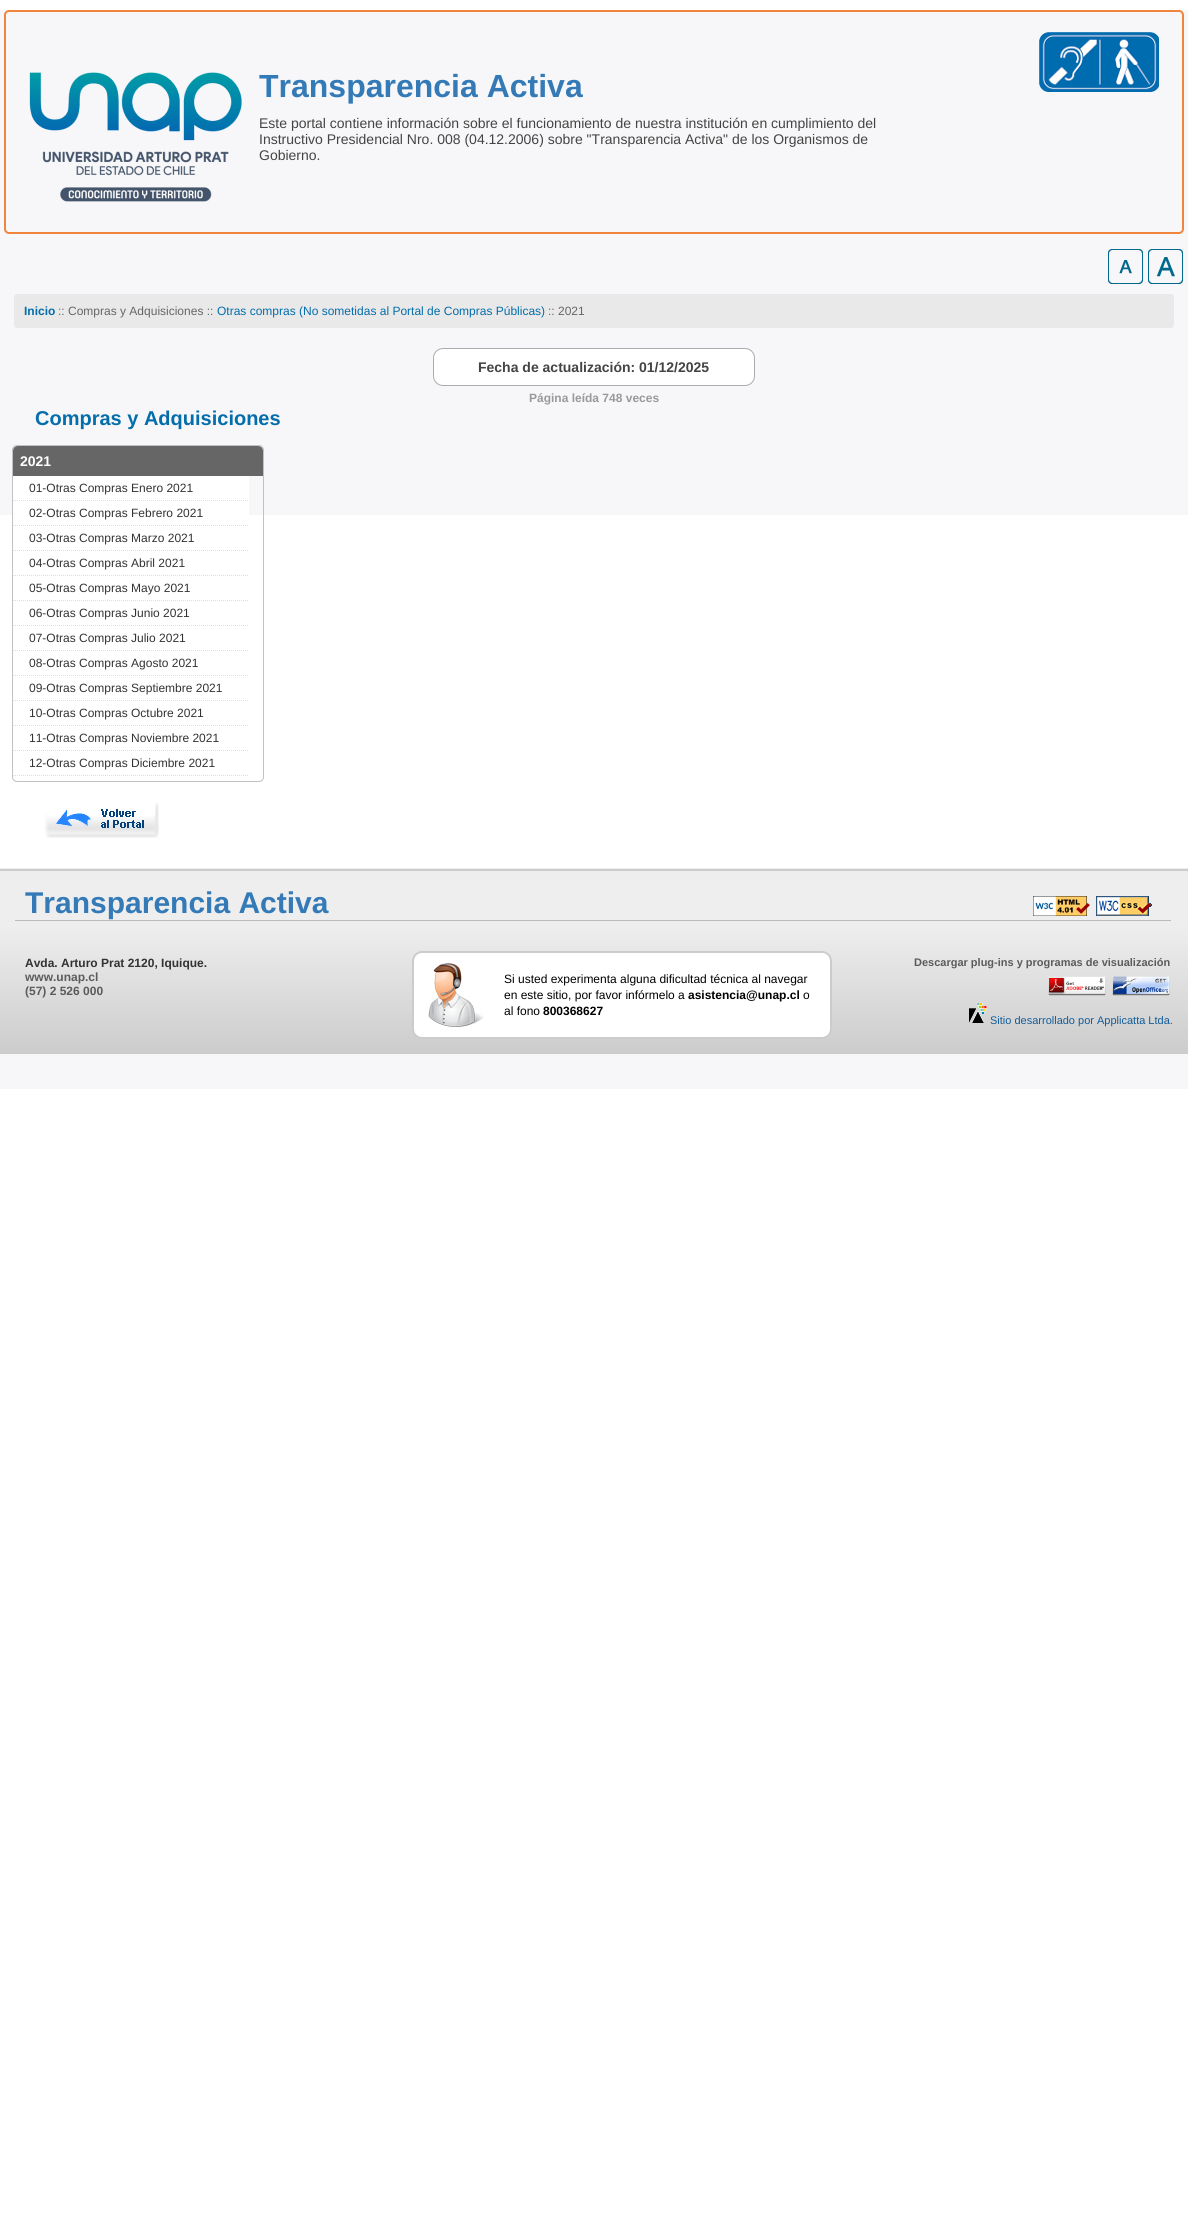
import math
import cairo

surface = cairo.ImageSurface(cairo.FORMAT_RGB24, 1188, 2221)
ctx = cairo.Context(surface)
options = cairo.FontOptions()
options.set_hint_metrics(cairo.HINT_METRICS_OFF)
options.set_hint_style(cairo.HINT_STYLE_NONE)
ctx.set_font_options(options)
ctx.set_miter_limit(4)


def round_rect(x, y, w, h, r):
    ctx.new_sub_path()
    for i, (u, v) in enumerate([(x + w - r, y + h - r), (x + r, y + h - r), (x + r, y + r), (x + w - r, y + r)]):
        ctx.arc(u, v, r, i * math.pi / 2, (i + 1) * math.pi / 2)
    ctx.close_path()


def picture(path, x, y, w, h):
    ctx.save()
    ctx.set_source_surface(cairo.ImageSurface.create_from_png(path), x, y)
    ctx.rectangle(x, y, w, h)
    ctx.fill()
    ctx.restore()


ctx.set_source_rgb(1, 1, 1)
ctx.paint()
ctx.set_source_rgb(0.965, 0.965, 0.973)
ctx.rectangle(0, 10, 1188, 505)
ctx.fill()
round_rect(5, 11, 1178, 222, 4)
ctx.set_source_rgb(0.941, 0.522, 0.243)
ctx.stroke()
picture("img1.png", 1039, 32, 120, 60)
picture("img2.png", 29, 72, 213, 130)
ctx.select_font_face("Liberation Sans", cairo.FONT_SLANT_NORMAL, cairo.FONT_WEIGHT_BOLD)
ctx.set_font_size(32)
ctx.set_source_rgb(0.2, 0.478, 0.718)
ctx.move_to(259, 97)
ctx.show_text("Transparencia Activa")
ctx.select_font_face("Liberation Sans")
ctx.set_font_size(14)
ctx.set_source_rgb(0.267, 0.267, 0.267)
ctx.move_to(259, 128)
ctx.show_text("Este portal contiene información sobre el funcionamiento de nuestra institución en cumplimiento del")
ctx.move_to(259, 144)
ctx.show_text("Instructivo Presidencial Nro. 008 (04.12.2006) sobre \"Transparencia Activa\" de los Organismos de")
ctx.move_to(259, 160)
ctx.show_text("Gobierno.")
picture("img3.png", 1108, 249, 35, 35)
picture("img4.png", 1148, 249, 35, 35)
ctx.set_source_rgb(0.914, 0.914, 0.914)
round_rect(14, 294, 1160, 34, 3)
ctx.fill()
ctx.select_font_face("Liberation Sans", cairo.FONT_SLANT_NORMAL, cairo.FONT_WEIGHT_BOLD)
ctx.set_font_size(12)
ctx.set_source_rgb(0.016, 0.427, 0.671)
ctx.move_to(24, 315)
ctx.show_text("Inicio")
ctx.select_font_face("Liberation Sans")
ctx.set_source_rgb(0.4, 0.4, 0.4)
ctx.move_to(58, 315)
ctx.show_text(":: Compras y Adquisiciones ::")
ctx.set_source_rgb(0.016, 0.427, 0.671)
ctx.move_to(217, 315)
ctx.show_text("Otras compras (No sometidas al Portal de Compras Públicas)")
ctx.set_source_rgb(0.4, 0.4, 0.4)
ctx.move_to(548, 315)
ctx.show_text(":: 2021")
ctx.set_source_rgb(1, 1, 1)
round_rect(433.5, 348.5, 321, 37, 9.5)
ctx.fill_preserve()
ctx.set_source_rgb(0.675, 0.675, 0.675)
ctx.set_line_width(1)
ctx.stroke()
ctx.select_font_face("Liberation Sans", cairo.FONT_SLANT_NORMAL, cairo.FONT_WEIGHT_BOLD)
ctx.set_font_size(14)
ctx.set_source_rgb(0.267, 0.267, 0.267)
ctx.move_to(478, 372)
ctx.show_text("Fecha de actualización: 01/12/2025")
ctx.set_font_size(12)
ctx.set_source_rgb(0.6, 0.6, 0.6)
ctx.move_to(529, 402)
ctx.show_text("Página leída 748 veces")
ctx.set_font_size(20)
ctx.set_source_rgb(0.016, 0.427, 0.671)
ctx.move_to(35, 425)
ctx.show_text("Compras y Adquisiciones")
round_rect(12.5, 445.5, 251, 336, 4.5)
ctx.set_source_rgb(0.761, 0.757, 0.757)
ctx.stroke()
ctx.set_source_rgb(0.4, 0.4, 0.4)
ctx.new_path()
ctx.move_to(18, 446)
ctx.line_to(258, 446)
ctx.curve_to(261, 446, 263, 448, 263, 451)
ctx.line_to(263, 476)
ctx.line_to(13, 476)
ctx.line_to(13, 451)
ctx.curve_to(13, 448, 15, 446, 18, 446)
ctx.close_path()
ctx.fill()
ctx.set_font_size(14)
ctx.set_source_rgb(1, 1, 1)
ctx.move_to(20, 466)
ctx.show_text("2021")
ctx.rectangle(13, 476, 236, 39)
ctx.fill()
ctx.new_path()
ctx.move_to(13, 500.5)
ctx.line_to(249, 500.5)
ctx.set_source_rgb(0.867, 0.867, 0.867)
ctx.set_dash([1, 1])
ctx.stroke()
ctx.select_font_face("Liberation Sans")
ctx.set_font_size(12)
ctx.set_source_rgb(0.2, 0.2, 0.2)
ctx.move_to(29, 492)
ctx.show_text("01-Otras Compras Enero 2021")
ctx.new_path()
ctx.move_to(13, 525.5)
ctx.line_to(249, 525.5)
ctx.set_source_rgb(0.867, 0.867, 0.867)
ctx.stroke()
ctx.set_source_rgb(0.2, 0.2, 0.2)
ctx.move_to(29, 517)
ctx.show_text("02-Otras Compras Febrero 2021")
ctx.new_path()
ctx.move_to(13, 550.5)
ctx.line_to(249, 550.5)
ctx.set_source_rgb(0.867, 0.867, 0.867)
ctx.stroke()
ctx.set_source_rgb(0.2, 0.2, 0.2)
ctx.move_to(29, 542)
ctx.show_text("03-Otras Compras Marzo 2021")
ctx.new_path()
ctx.move_to(13, 575.5)
ctx.line_to(249, 575.5)
ctx.set_source_rgb(0.867, 0.867, 0.867)
ctx.stroke()
ctx.set_source_rgb(0.2, 0.2, 0.2)
ctx.move_to(29, 567)
ctx.show_text("04-Otras Compras Abril 2021")
ctx.new_path()
ctx.move_to(13, 600.5)
ctx.line_to(249, 600.5)
ctx.set_source_rgb(0.867, 0.867, 0.867)
ctx.stroke()
ctx.set_source_rgb(0.2, 0.2, 0.2)
ctx.move_to(29, 592)
ctx.show_text("05-Otras Compras Mayo 2021")
ctx.new_path()
ctx.move_to(13, 625.5)
ctx.line_to(249, 625.5)
ctx.set_source_rgb(0.867, 0.867, 0.867)
ctx.stroke()
ctx.set_source_rgb(0.2, 0.2, 0.2)
ctx.move_to(29, 617)
ctx.show_text("06-Otras Compras Junio 2021")
ctx.new_path()
ctx.move_to(13, 650.5)
ctx.line_to(249, 650.5)
ctx.set_source_rgb(0.867, 0.867, 0.867)
ctx.stroke()
ctx.set_source_rgb(0.2, 0.2, 0.2)
ctx.move_to(29, 642)
ctx.show_text("07-Otras Compras Julio 2021")
ctx.new_path()
ctx.move_to(13, 675.5)
ctx.line_to(249, 675.5)
ctx.set_source_rgb(0.867, 0.867, 0.867)
ctx.stroke()
ctx.set_source_rgb(0.2, 0.2, 0.2)
ctx.move_to(29, 667)
ctx.show_text("08-Otras Compras Agosto 2021")
ctx.new_path()
ctx.move_to(13, 700.5)
ctx.line_to(249, 700.5)
ctx.set_source_rgb(0.867, 0.867, 0.867)
ctx.stroke()
ctx.set_source_rgb(0.2, 0.2, 0.2)
ctx.move_to(29, 692)
ctx.show_text("09-Otras Compras Septiembre 2021")
ctx.new_path()
ctx.move_to(13, 725.5)
ctx.line_to(249, 725.5)
ctx.set_source_rgb(0.867, 0.867, 0.867)
ctx.stroke()
ctx.set_source_rgb(0.2, 0.2, 0.2)
ctx.move_to(29, 717)
ctx.show_text("10-Otras Compras Octubre 2021")
ctx.new_path()
ctx.move_to(13, 750.5)
ctx.line_to(249, 750.5)
ctx.set_source_rgb(0.867, 0.867, 0.867)
ctx.stroke()
ctx.set_source_rgb(0.2, 0.2, 0.2)
ctx.move_to(29, 742)
ctx.show_text("11-Otras Compras Noviembre 2021")
ctx.new_path()
ctx.move_to(13, 775.5)
ctx.line_to(249, 775.5)
ctx.set_source_rgb(0.867, 0.867, 0.867)
ctx.stroke()
ctx.set_source_rgb(0.2, 0.2, 0.2)
ctx.move_to(29, 767)
ctx.show_text("12-Otras Compras Diciembre 2021")
picture("img5.png", 45, 803, 114, 35)
ctx.set_source_rgb(0.965, 0.965, 0.973)
ctx.rectangle(0, 1054, 1188, 35)
ctx.fill()
ctx.set_source_rgb(0.933, 0.933, 0.933)
ctx.rectangle(0, 868, 1188, 1)
ctx.fill()
gradient = cairo.LinearGradient(594, 688, 594, 871)
gradient.add_color_stop_rgba(0.3, 0.933, 0.933, 0.933, 1)
gradient.add_color_stop_rgba(1, 0.8, 0.8, 0.8, 1)
ctx.set_source(gradient)
ctx.rectangle(0, 869, 1188, 2)
ctx.fill()
gradient = cairo.LinearGradient(594, 871, 594, 1054)
gradient.add_color_stop_rgba(0.3, 0.933, 0.933, 0.933, 1)
gradient.add_color_stop_rgba(1, 0.8, 0.8, 0.8, 1)
ctx.set_source(gradient)
ctx.rectangle(0, 871, 1188, 183)
ctx.fill()
ctx.set_source_rgb(0.733, 0.733, 0.733)
ctx.rectangle(15, 920, 1156, 1)
ctx.fill()
ctx.select_font_face("Liberation Sans", cairo.FONT_SLANT_NORMAL, cairo.FONT_WEIGHT_BOLD)
ctx.set_font_size(30)
ctx.set_source_rgb(0.2, 0.478, 0.718)
ctx.move_to(25, 913)
ctx.show_text("Transparencia Activa")
picture("img6.png", 1033, 896, 57, 20)
picture("img7.png", 1096, 896, 56, 20)
ctx.set_font_size(12)
ctx.set_source_rgb(0.2, 0.2, 0.2)
ctx.move_to(25, 967)
ctx.show_text("Avda. Arturo Prat 2120, Iquique.")
ctx.set_source_rgb(0.357, 0.357, 0.357)
ctx.move_to(25, 981)
ctx.show_text("www.unap.cl")
ctx.move_to(25, 995)
ctx.show_text("(57) 2 526 000")
ctx.set_source_rgb(1, 1, 1)
round_rect(413, 952, 418, 86, 9)
ctx.fill_preserve()
ctx.set_source_rgb(0.8, 0.8, 0.8)
ctx.set_line_width(2)
ctx.set_dash([])
ctx.stroke()
picture("img8.png", 428, 963, 56, 64)
ctx.select_font_face("Liberation Sans")
ctx.set_source_rgb(0, 0, 0)
ctx.move_to(504, 983)
ctx.show_text("Si usted experimenta alguna dificultad técnica al navegar")
ctx.move_to(504, 999)
ctx.show_text("en este sitio, por favor infórmelo a")
ctx.select_font_face("Liberation Sans", cairo.FONT_SLANT_NORMAL, cairo.FONT_WEIGHT_BOLD)
ctx.move_to(688, 999)
ctx.show_text("asistencia@unap.cl")
ctx.select_font_face("Liberation Sans")
ctx.move_to(803, 999)
ctx.show_text("o")
ctx.move_to(504, 1015)
ctx.show_text("al fono")
ctx.select_font_face("Liberation Sans", cairo.FONT_SLANT_NORMAL, cairo.FONT_WEIGHT_BOLD)
ctx.move_to(543, 1015)
ctx.show_text("800368627")
ctx.set_font_size(11)
ctx.set_source_rgb(0.357, 0.357, 0.357)
ctx.move_to(914, 966)
ctx.show_text("Descargar plug-ins y programas de visualización")
picture("img9.png", 1048, 976, 58, 20)
picture("img10.png", 1112, 976, 58, 20)
picture("img11.png", 969, 1003, 18, 20)
ctx.select_font_face("Liberation Sans")
ctx.set_source_rgb(0.067, 0.361, 0.6)
ctx.move_to(990, 1024)
ctx.show_text("Sitio desarrollado por Applicatta Ltda.")
surface.write_to_png("page.png")
